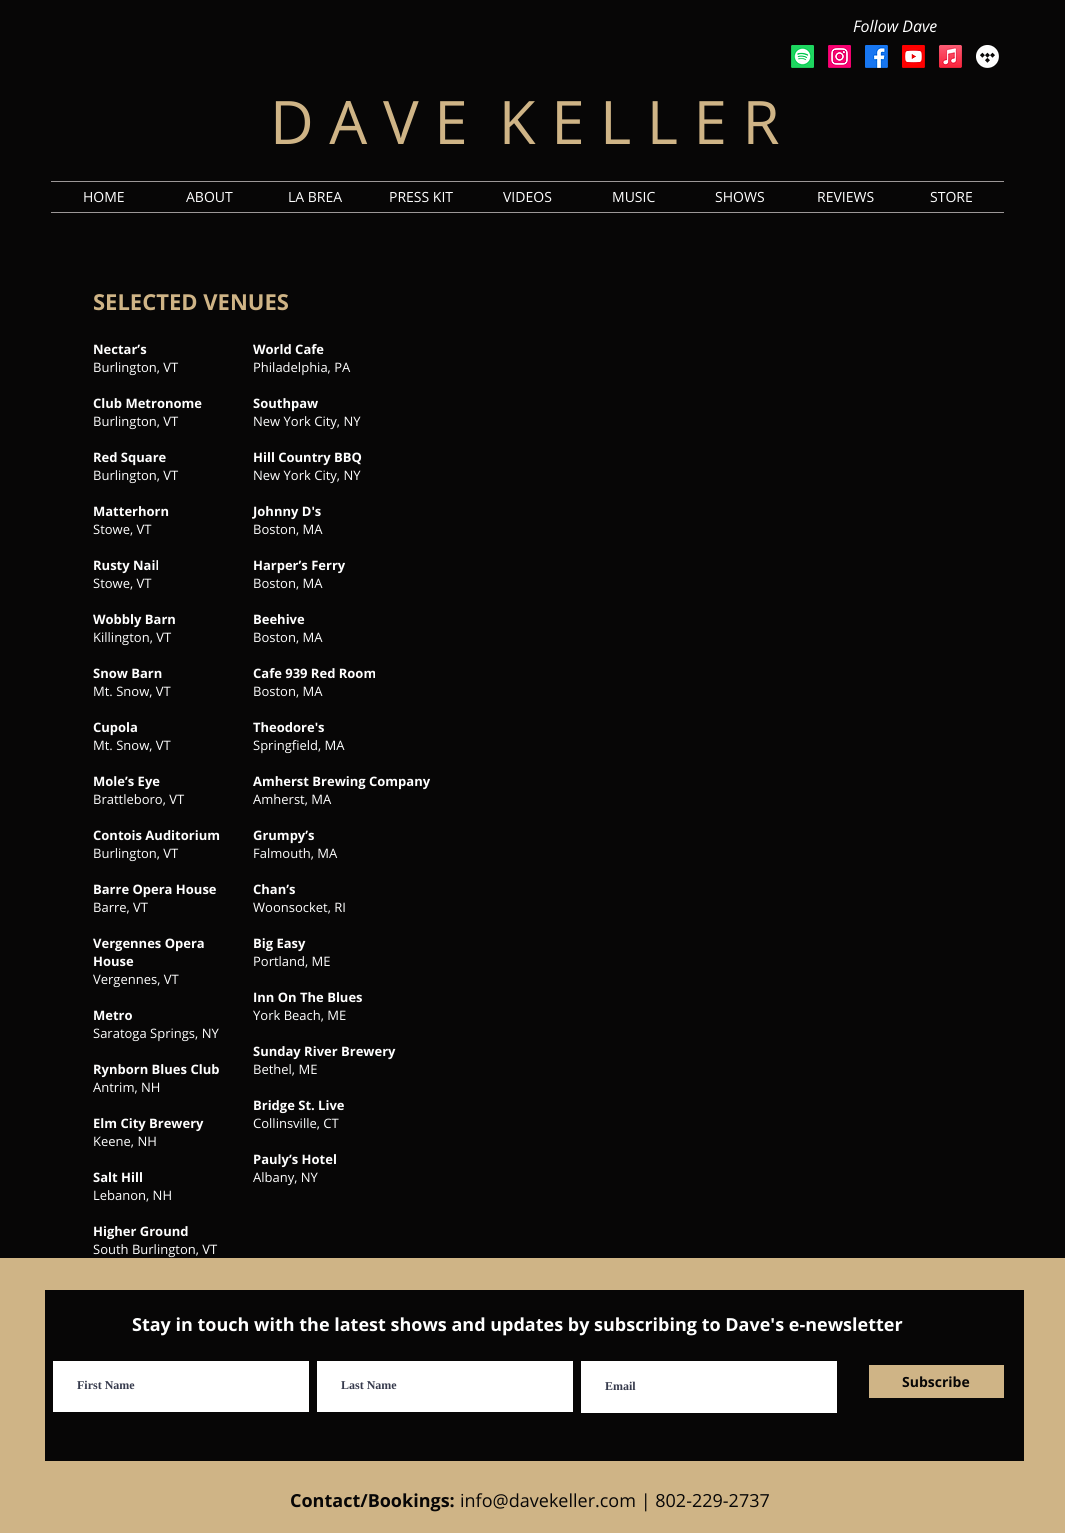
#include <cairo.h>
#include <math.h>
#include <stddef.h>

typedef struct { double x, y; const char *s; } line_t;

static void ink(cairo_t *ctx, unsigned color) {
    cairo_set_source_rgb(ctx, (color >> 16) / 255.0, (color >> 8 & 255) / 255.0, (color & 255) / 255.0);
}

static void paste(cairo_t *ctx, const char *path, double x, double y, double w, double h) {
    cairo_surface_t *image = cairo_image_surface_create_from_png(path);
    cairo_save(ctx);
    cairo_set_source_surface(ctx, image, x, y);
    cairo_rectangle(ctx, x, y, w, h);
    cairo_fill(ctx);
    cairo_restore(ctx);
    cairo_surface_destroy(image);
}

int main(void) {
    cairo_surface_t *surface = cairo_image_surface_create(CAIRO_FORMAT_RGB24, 1065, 1533);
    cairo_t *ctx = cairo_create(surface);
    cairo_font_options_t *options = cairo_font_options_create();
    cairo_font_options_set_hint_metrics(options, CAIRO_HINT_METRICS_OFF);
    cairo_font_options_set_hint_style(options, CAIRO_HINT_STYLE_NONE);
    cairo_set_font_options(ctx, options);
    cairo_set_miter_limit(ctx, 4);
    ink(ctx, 0x070606);
    cairo_paint(ctx);
    cairo_select_font_face(ctx, "Open Sans", CAIRO_FONT_SLANT_ITALIC, CAIRO_FONT_WEIGHT_NORMAL);
    cairo_set_font_size(ctx, 16);
    ink(ctx, 0xFFFFFF);
    cairo_move_to(ctx, 853, 32);
    cairo_show_text(ctx, "Follow Dave");
    paste(ctx, "media/1.png", 791, 45, 23, 23);
    paste(ctx, "media/2.png", 828, 45, 23, 23);
    paste(ctx, "media/3.png", 865, 45, 23, 23);
    paste(ctx, "media/4.png", 902, 45, 23, 23);
    paste(ctx, "media/5.png", 939, 45, 23, 23);
    paste(ctx, "media/6.png", 976, 45, 23, 23);
    cairo_select_font_face(ctx, "Open Sans", CAIRO_FONT_SLANT_NORMAL, CAIRO_FONT_WEIGHT_NORMAL);
    cairo_set_font_size(ctx, 60);
    ink(ctx, 0xCFB486);
    cairo_move_to(ctx, 270, 144);
    cairo_show_text(ctx, "D A V E  K E L L E R");
    ink(ctx, 0x9C9797);
    cairo_rectangle(ctx, 51, 181, 953, 1);
    cairo_fill(ctx);
    cairo_rectangle(ctx, 51, 212, 953, 1);
    cairo_fill(ctx);
    cairo_set_font_size(ctx, 14);
    ink(ctx, 0xFFFFFF);
    {
        static const line_t items[] = {
            {83, 202, "HOME"},
            {186, 202, "ABOUT"},
            {288, 202, "LA BREA"},
            {389, 202, "PRESS KIT"},
            {503, 202, "VIDEOS"},
            {612, 202, "MUSIC"},
            {715, 202, "SHOWS"},
            {817, 202, "REVIEWS"},
            {930, 202, "STORE"},
        };
        for (size_t i = 0; i < sizeof items / sizeof *items; i++) {
            cairo_move_to(ctx, items[i].x, items[i].y);
            cairo_show_text(ctx, items[i].s);
        }
    }
    cairo_select_font_face(ctx, "Open Sans", CAIRO_FONT_SLANT_NORMAL, CAIRO_FONT_WEIGHT_BOLD);
    cairo_set_font_size(ctx, 22);
    ink(ctx, 0xCFB486);
    cairo_move_to(ctx, 93, 310);
    cairo_show_text(ctx, "SELECTED VENUES");
    cairo_set_font_size(ctx, 13);
    ink(ctx, 0xFFFFFF);
    cairo_move_to(ctx, 93, 354);
    cairo_show_text(ctx, "Nectar’s");
    cairo_select_font_face(ctx, "Open Sans", CAIRO_FONT_SLANT_NORMAL, CAIRO_FONT_WEIGHT_NORMAL);
    cairo_move_to(ctx, 93, 372);
    cairo_show_text(ctx, "Burlington, VT");
    cairo_select_font_face(ctx, "Open Sans", CAIRO_FONT_SLANT_NORMAL, CAIRO_FONT_WEIGHT_BOLD);
    cairo_move_to(ctx, 93, 408);
    cairo_show_text(ctx, "Club Metronome");
    cairo_select_font_face(ctx, "Open Sans", CAIRO_FONT_SLANT_NORMAL, CAIRO_FONT_WEIGHT_NORMAL);
    cairo_move_to(ctx, 93, 426);
    cairo_show_text(ctx, "Burlington, VT");
    cairo_select_font_face(ctx, "Open Sans", CAIRO_FONT_SLANT_NORMAL, CAIRO_FONT_WEIGHT_BOLD);
    cairo_move_to(ctx, 93, 462);
    cairo_show_text(ctx, "Red Square");
    cairo_select_font_face(ctx, "Open Sans", CAIRO_FONT_SLANT_NORMAL, CAIRO_FONT_WEIGHT_NORMAL);
    cairo_move_to(ctx, 93, 480);
    cairo_show_text(ctx, "Burlington, VT");
    cairo_select_font_face(ctx, "Open Sans", CAIRO_FONT_SLANT_NORMAL, CAIRO_FONT_WEIGHT_BOLD);
    cairo_move_to(ctx, 93, 516);
    cairo_show_text(ctx, "Matterhorn");
    cairo_select_font_face(ctx, "Open Sans", CAIRO_FONT_SLANT_NORMAL, CAIRO_FONT_WEIGHT_NORMAL);
    cairo_move_to(ctx, 93, 534);
    cairo_show_text(ctx, "Stowe, VT");
    cairo_select_font_face(ctx, "Open Sans", CAIRO_FONT_SLANT_NORMAL, CAIRO_FONT_WEIGHT_BOLD);
    cairo_move_to(ctx, 93, 570);
    cairo_show_text(ctx, "Rusty Nail");
    cairo_select_font_face(ctx, "Open Sans", CAIRO_FONT_SLANT_NORMAL, CAIRO_FONT_WEIGHT_NORMAL);
    cairo_move_to(ctx, 93, 588);
    cairo_show_text(ctx, "Stowe, VT");
    cairo_select_font_face(ctx, "Open Sans", CAIRO_FONT_SLANT_NORMAL, CAIRO_FONT_WEIGHT_BOLD);
    cairo_move_to(ctx, 93, 624);
    cairo_show_text(ctx, "Wobbly Barn");
    cairo_select_font_face(ctx, "Open Sans", CAIRO_FONT_SLANT_NORMAL, CAIRO_FONT_WEIGHT_NORMAL);
    cairo_move_to(ctx, 93, 642);
    cairo_show_text(ctx, "Killington, VT");
    cairo_select_font_face(ctx, "Open Sans", CAIRO_FONT_SLANT_NORMAL, CAIRO_FONT_WEIGHT_BOLD);
    cairo_move_to(ctx, 93, 678);
    cairo_show_text(ctx, "Snow Barn");
    cairo_select_font_face(ctx, "Open Sans", CAIRO_FONT_SLANT_NORMAL, CAIRO_FONT_WEIGHT_NORMAL);
    cairo_move_to(ctx, 93, 696);
    cairo_show_text(ctx, "Mt. Snow, VT");
    cairo_select_font_face(ctx, "Open Sans", CAIRO_FONT_SLANT_NORMAL, CAIRO_FONT_WEIGHT_BOLD);
    cairo_move_to(ctx, 93, 732);
    cairo_show_text(ctx, "Cupola");
    cairo_select_font_face(ctx, "Open Sans", CAIRO_FONT_SLANT_NORMAL, CAIRO_FONT_WEIGHT_NORMAL);
    cairo_move_to(ctx, 93, 750);
    cairo_show_text(ctx, "Mt. Snow, VT");
    cairo_select_font_face(ctx, "Open Sans", CAIRO_FONT_SLANT_NORMAL, CAIRO_FONT_WEIGHT_BOLD);
    cairo_move_to(ctx, 93, 786);
    cairo_show_text(ctx, "Mole’s Eye");
    cairo_select_font_face(ctx, "Open Sans", CAIRO_FONT_SLANT_NORMAL, CAIRO_FONT_WEIGHT_NORMAL);
    cairo_move_to(ctx, 93, 804);
    cairo_show_text(ctx, "Brattleboro, VT");
    cairo_select_font_face(ctx, "Open Sans", CAIRO_FONT_SLANT_NORMAL, CAIRO_FONT_WEIGHT_BOLD);
    cairo_move_to(ctx, 93, 840);
    cairo_show_text(ctx, "Contois Auditorium");
    cairo_select_font_face(ctx, "Open Sans", CAIRO_FONT_SLANT_NORMAL, CAIRO_FONT_WEIGHT_NORMAL);
    cairo_move_to(ctx, 93, 858);
    cairo_show_text(ctx, "Burlington, VT");
    cairo_select_font_face(ctx, "Open Sans", CAIRO_FONT_SLANT_NORMAL, CAIRO_FONT_WEIGHT_BOLD);
    cairo_move_to(ctx, 93, 894);
    cairo_show_text(ctx, "Barre Opera House");
    cairo_select_font_face(ctx, "Open Sans", CAIRO_FONT_SLANT_NORMAL, CAIRO_FONT_WEIGHT_NORMAL);
    cairo_move_to(ctx, 93, 912);
    cairo_show_text(ctx, "Barre, VT");
    cairo_select_font_face(ctx, "Open Sans", CAIRO_FONT_SLANT_NORMAL, CAIRO_FONT_WEIGHT_BOLD);
    cairo_move_to(ctx, 93, 948);
    cairo_show_text(ctx, "Vergennes Opera");
    cairo_move_to(ctx, 93, 966);
    cairo_show_text(ctx, "House");
    cairo_select_font_face(ctx, "Open Sans", CAIRO_FONT_SLANT_NORMAL, CAIRO_FONT_WEIGHT_NORMAL);
    cairo_move_to(ctx, 93, 984);
    cairo_show_text(ctx, "Vergennes, VT");
    cairo_select_font_face(ctx, "Open Sans", CAIRO_FONT_SLANT_NORMAL, CAIRO_FONT_WEIGHT_BOLD);
    cairo_move_to(ctx, 93, 1020);
    cairo_show_text(ctx, "Metro");
    cairo_select_font_face(ctx, "Open Sans", CAIRO_FONT_SLANT_NORMAL, CAIRO_FONT_WEIGHT_NORMAL);
    cairo_move_to(ctx, 93, 1038);
    cairo_show_text(ctx, "Saratoga Springs, NY");
    cairo_select_font_face(ctx, "Open Sans", CAIRO_FONT_SLANT_NORMAL, CAIRO_FONT_WEIGHT_BOLD);
    cairo_move_to(ctx, 93, 1074);
    cairo_show_text(ctx, "Rynborn Blues Club");
    cairo_select_font_face(ctx, "Open Sans", CAIRO_FONT_SLANT_NORMAL, CAIRO_FONT_WEIGHT_NORMAL);
    cairo_move_to(ctx, 93, 1092);
    cairo_show_text(ctx, "Antrim, NH");
    cairo_select_font_face(ctx, "Open Sans", CAIRO_FONT_SLANT_NORMAL, CAIRO_FONT_WEIGHT_BOLD);
    cairo_move_to(ctx, 93, 1128);
    cairo_show_text(ctx, "Elm City Brewery");
    cairo_select_font_face(ctx, "Open Sans", CAIRO_FONT_SLANT_NORMAL, CAIRO_FONT_WEIGHT_NORMAL);
    cairo_move_to(ctx, 93, 1146);
    cairo_show_text(ctx, "Keene, NH");
    cairo_select_font_face(ctx, "Open Sans", CAIRO_FONT_SLANT_NORMAL, CAIRO_FONT_WEIGHT_BOLD);
    cairo_move_to(ctx, 93, 1182);
    cairo_show_text(ctx, "Salt Hill");
    cairo_select_font_face(ctx, "Open Sans", CAIRO_FONT_SLANT_NORMAL, CAIRO_FONT_WEIGHT_NORMAL);
    cairo_move_to(ctx, 93, 1200);
    cairo_show_text(ctx, "Lebanon, NH");
    cairo_select_font_face(ctx, "Open Sans", CAIRO_FONT_SLANT_NORMAL, CAIRO_FONT_WEIGHT_BOLD);
    cairo_move_to(ctx, 93, 1236);
    cairo_show_text(ctx, "Higher Ground");
    cairo_select_font_face(ctx, "Open Sans", CAIRO_FONT_SLANT_NORMAL, CAIRO_FONT_WEIGHT_NORMAL);
    cairo_move_to(ctx, 93, 1254);
    cairo_show_text(ctx, "South Burlington, VT");
    cairo_select_font_face(ctx, "Open Sans", CAIRO_FONT_SLANT_NORMAL, CAIRO_FONT_WEIGHT_BOLD);
    cairo_move_to(ctx, 253, 354);
    cairo_show_text(ctx, "World Cafe");
    cairo_select_font_face(ctx, "Open Sans", CAIRO_FONT_SLANT_NORMAL, CAIRO_FONT_WEIGHT_NORMAL);
    cairo_move_to(ctx, 253, 372);
    cairo_show_text(ctx, "Philadelphia, PA");
    cairo_select_font_face(ctx, "Open Sans", CAIRO_FONT_SLANT_NORMAL, CAIRO_FONT_WEIGHT_BOLD);
    cairo_move_to(ctx, 253, 408);
    cairo_show_text(ctx, "Southpaw");
    cairo_select_font_face(ctx, "Open Sans", CAIRO_FONT_SLANT_NORMAL, CAIRO_FONT_WEIGHT_NORMAL);
    cairo_move_to(ctx, 253, 426);
    cairo_show_text(ctx, "New York City, NY");
    cairo_select_font_face(ctx, "Open Sans", CAIRO_FONT_SLANT_NORMAL, CAIRO_FONT_WEIGHT_BOLD);
    cairo_move_to(ctx, 253, 462);
    cairo_show_text(ctx, "Hill Country BBQ");
    cairo_select_font_face(ctx, "Open Sans", CAIRO_FONT_SLANT_NORMAL, CAIRO_FONT_WEIGHT_NORMAL);
    cairo_move_to(ctx, 253, 480);
    cairo_show_text(ctx, "New York City, NY");
    cairo_select_font_face(ctx, "Open Sans", CAIRO_FONT_SLANT_NORMAL, CAIRO_FONT_WEIGHT_BOLD);
    cairo_move_to(ctx, 253, 516);
    cairo_show_text(ctx, "Johnny D's");
    cairo_select_font_face(ctx, "Open Sans", CAIRO_FONT_SLANT_NORMAL, CAIRO_FONT_WEIGHT_NORMAL);
    cairo_move_to(ctx, 253, 534);
    cairo_show_text(ctx, "Boston, MA");
    cairo_select_font_face(ctx, "Open Sans", CAIRO_FONT_SLANT_NORMAL, CAIRO_FONT_WEIGHT_BOLD);
    cairo_move_to(ctx, 253, 570);
    cairo_show_text(ctx, "Harper’s Ferry");
    cairo_select_font_face(ctx, "Open Sans", CAIRO_FONT_SLANT_NORMAL, CAIRO_FONT_WEIGHT_NORMAL);
    cairo_move_to(ctx, 253, 588);
    cairo_show_text(ctx, "Boston, MA");
    cairo_select_font_face(ctx, "Open Sans", CAIRO_FONT_SLANT_NORMAL, CAIRO_FONT_WEIGHT_BOLD);
    cairo_move_to(ctx, 253, 624);
    cairo_show_text(ctx, "Beehive");
    cairo_select_font_face(ctx, "Open Sans", CAIRO_FONT_SLANT_NORMAL, CAIRO_FONT_WEIGHT_NORMAL);
    cairo_move_to(ctx, 253, 642);
    cairo_show_text(ctx, "Boston, MA");
    cairo_select_font_face(ctx, "Open Sans", CAIRO_FONT_SLANT_NORMAL, CAIRO_FONT_WEIGHT_BOLD);
    cairo_move_to(ctx, 253, 678);
    cairo_show_text(ctx, "Cafe 939 Red Room");
    cairo_select_font_face(ctx, "Open Sans", CAIRO_FONT_SLANT_NORMAL, CAIRO_FONT_WEIGHT_NORMAL);
    cairo_move_to(ctx, 253, 696);
    cairo_show_text(ctx, "Boston, MA");
    cairo_select_font_face(ctx, "Open Sans", CAIRO_FONT_SLANT_NORMAL, CAIRO_FONT_WEIGHT_BOLD);
    cairo_move_to(ctx, 253, 732);
    cairo_show_text(ctx, "Theodore's");
    cairo_select_font_face(ctx, "Open Sans", CAIRO_FONT_SLANT_NORMAL, CAIRO_FONT_WEIGHT_NORMAL);
    cairo_move_to(ctx, 253, 750);
    cairo_show_text(ctx, "Springfield, MA");
    cairo_select_font_face(ctx, "Open Sans", CAIRO_FONT_SLANT_NORMAL, CAIRO_FONT_WEIGHT_BOLD);
    cairo_move_to(ctx, 253, 786);
    cairo_show_text(ctx, "Amherst Brewing Company");
    cairo_select_font_face(ctx, "Open Sans", CAIRO_FONT_SLANT_NORMAL, CAIRO_FONT_WEIGHT_NORMAL);
    cairo_move_to(ctx, 253, 804);
    cairo_show_text(ctx, "Amherst, MA");
    cairo_select_font_face(ctx, "Open Sans", CAIRO_FONT_SLANT_NORMAL, CAIRO_FONT_WEIGHT_BOLD);
    cairo_move_to(ctx, 253, 840);
    cairo_show_text(ctx, "Grumpy’s");
    cairo_select_font_face(ctx, "Open Sans", CAIRO_FONT_SLANT_NORMAL, CAIRO_FONT_WEIGHT_NORMAL);
    cairo_move_to(ctx, 253, 858);
    cairo_show_text(ctx, "Falmouth, MA");
    cairo_select_font_face(ctx, "Open Sans", CAIRO_FONT_SLANT_NORMAL, CAIRO_FONT_WEIGHT_BOLD);
    cairo_move_to(ctx, 253, 894);
    cairo_show_text(ctx, "Chan’s");
    cairo_select_font_face(ctx, "Open Sans", CAIRO_FONT_SLANT_NORMAL, CAIRO_FONT_WEIGHT_NORMAL);
    cairo_move_to(ctx, 253, 912);
    cairo_show_text(ctx, "Woonsocket, RI");
    cairo_select_font_face(ctx, "Open Sans", CAIRO_FONT_SLANT_NORMAL, CAIRO_FONT_WEIGHT_BOLD);
    cairo_move_to(ctx, 253, 948);
    cairo_show_text(ctx, "Big Easy");
    cairo_select_font_face(ctx, "Open Sans", CAIRO_FONT_SLANT_NORMAL, CAIRO_FONT_WEIGHT_NORMAL);
    cairo_move_to(ctx, 253, 966);
    cairo_show_text(ctx, "Portland, ME");
    cairo_select_font_face(ctx, "Open Sans", CAIRO_FONT_SLANT_NORMAL, CAIRO_FONT_WEIGHT_BOLD);
    cairo_move_to(ctx, 253, 1002);
    cairo_show_text(ctx, "Inn On The Blues");
    cairo_select_font_face(ctx, "Open Sans", CAIRO_FONT_SLANT_NORMAL, CAIRO_FONT_WEIGHT_NORMAL);
    cairo_move_to(ctx, 253, 1020);
    cairo_show_text(ctx, "York Beach, ME");
    cairo_select_font_face(ctx, "Open Sans", CAIRO_FONT_SLANT_NORMAL, CAIRO_FONT_WEIGHT_BOLD);
    cairo_move_to(ctx, 253, 1056);
    cairo_show_text(ctx, "Sunday River Brewery");
    cairo_select_font_face(ctx, "Open Sans", CAIRO_FONT_SLANT_NORMAL, CAIRO_FONT_WEIGHT_NORMAL);
    cairo_move_to(ctx, 253, 1074);
    cairo_show_text(ctx, "Bethel, ME");
    cairo_select_font_face(ctx, "Open Sans", CAIRO_FONT_SLANT_NORMAL, CAIRO_FONT_WEIGHT_BOLD);
    cairo_move_to(ctx, 253, 1110);
    cairo_show_text(ctx, "Bridge St. Live");
    cairo_select_font_face(ctx, "Open Sans", CAIRO_FONT_SLANT_NORMAL, CAIRO_FONT_WEIGHT_NORMAL);
    cairo_move_to(ctx, 253, 1128);
    cairo_show_text(ctx, "Collinsville, CT");
    cairo_select_font_face(ctx, "Open Sans", CAIRO_FONT_SLANT_NORMAL, CAIRO_FONT_WEIGHT_BOLD);
    cairo_move_to(ctx, 253, 1164);
    cairo_show_text(ctx, "Pauly’s Hotel");
    cairo_select_font_face(ctx, "Open Sans", CAIRO_FONT_SLANT_NORMAL, CAIRO_FONT_WEIGHT_NORMAL);
    cairo_move_to(ctx, 253, 1182);
    cairo_show_text(ctx, "Albany, NY");
    ink(ctx, 0xCFB486);
    cairo_rectangle(ctx, 0, 1258, 1065, 275);
    cairo_fill(ctx);
    ink(ctx, 0x070606);
    cairo_rectangle(ctx, 45, 1290, 979, 171);
    cairo_fill(ctx);
    cairo_select_font_face(ctx, "Open Sans", CAIRO_FONT_SLANT_NORMAL, CAIRO_FONT_WEIGHT_BOLD);
    cairo_set_font_size(ctx, 18);
    ink(ctx, 0xFFFFFF);
    cairo_move_to(ctx, 132, 1331);
    cairo_show_text(ctx, "Stay in touch with the latest shows and updates by subscribing to Dave's e-newsletter");
    cairo_rectangle(ctx, 53, 1361, 256, 51);
    cairo_fill(ctx);
    cairo_select_font_face(ctx, "Liberation Serif", CAIRO_FONT_SLANT_NORMAL, CAIRO_FONT_WEIGHT_BOLD);
    cairo_set_font_size(ctx, 12);
    ink(ctx, 0x373B4D);
    cairo_move_to(ctx, 77, 1389);
    cairo_show_text(ctx, "First Name");
    ink(ctx, 0xFFFFFF);
    cairo_rectangle(ctx, 317, 1361, 256, 51);
    cairo_fill(ctx);
    ink(ctx, 0x373B4D);
    cairo_move_to(ctx, 341, 1389);
    cairo_show_text(ctx, "Last Name");
    ink(ctx, 0xFFFFFF);
    cairo_rectangle(ctx, 581, 1361, 256, 52);
    cairo_fill(ctx);
    ink(ctx, 0x373B4D);
    cairo_move_to(ctx, 605, 1390);
    cairo_show_text(ctx, "Email");
    ink(ctx, 0xCFB486);
    cairo_rectangle(ctx, 869, 1365, 135, 33);
    cairo_fill(ctx);
    cairo_select_font_face(ctx, "Open Sans", CAIRO_FONT_SLANT_NORMAL, CAIRO_FONT_WEIGHT_BOLD);
    cairo_set_font_size(ctx, 14);
    ink(ctx, 0x070606);
    cairo_move_to(ctx, 902, 1387);
    cairo_show_text(ctx, "Subscribe");
    cairo_set_font_size(ctx, 18);
    cairo_move_to(ctx, 290, 1507);
    cairo_show_text(ctx, "Contact/Bookings:");
    cairo_select_font_face(ctx, "Open Sans", CAIRO_FONT_SLANT_NORMAL, CAIRO_FONT_WEIGHT_NORMAL);
    cairo_move_to(ctx, 460, 1507);
    cairo_show_text(ctx, "info@davekeller.com | 802-229-2737");
    cairo_surface_write_to_png(surface, "image.png");
    cairo_font_options_destroy(options);
    cairo_destroy(ctx);
    cairo_surface_destroy(surface);
    return 0;
}
